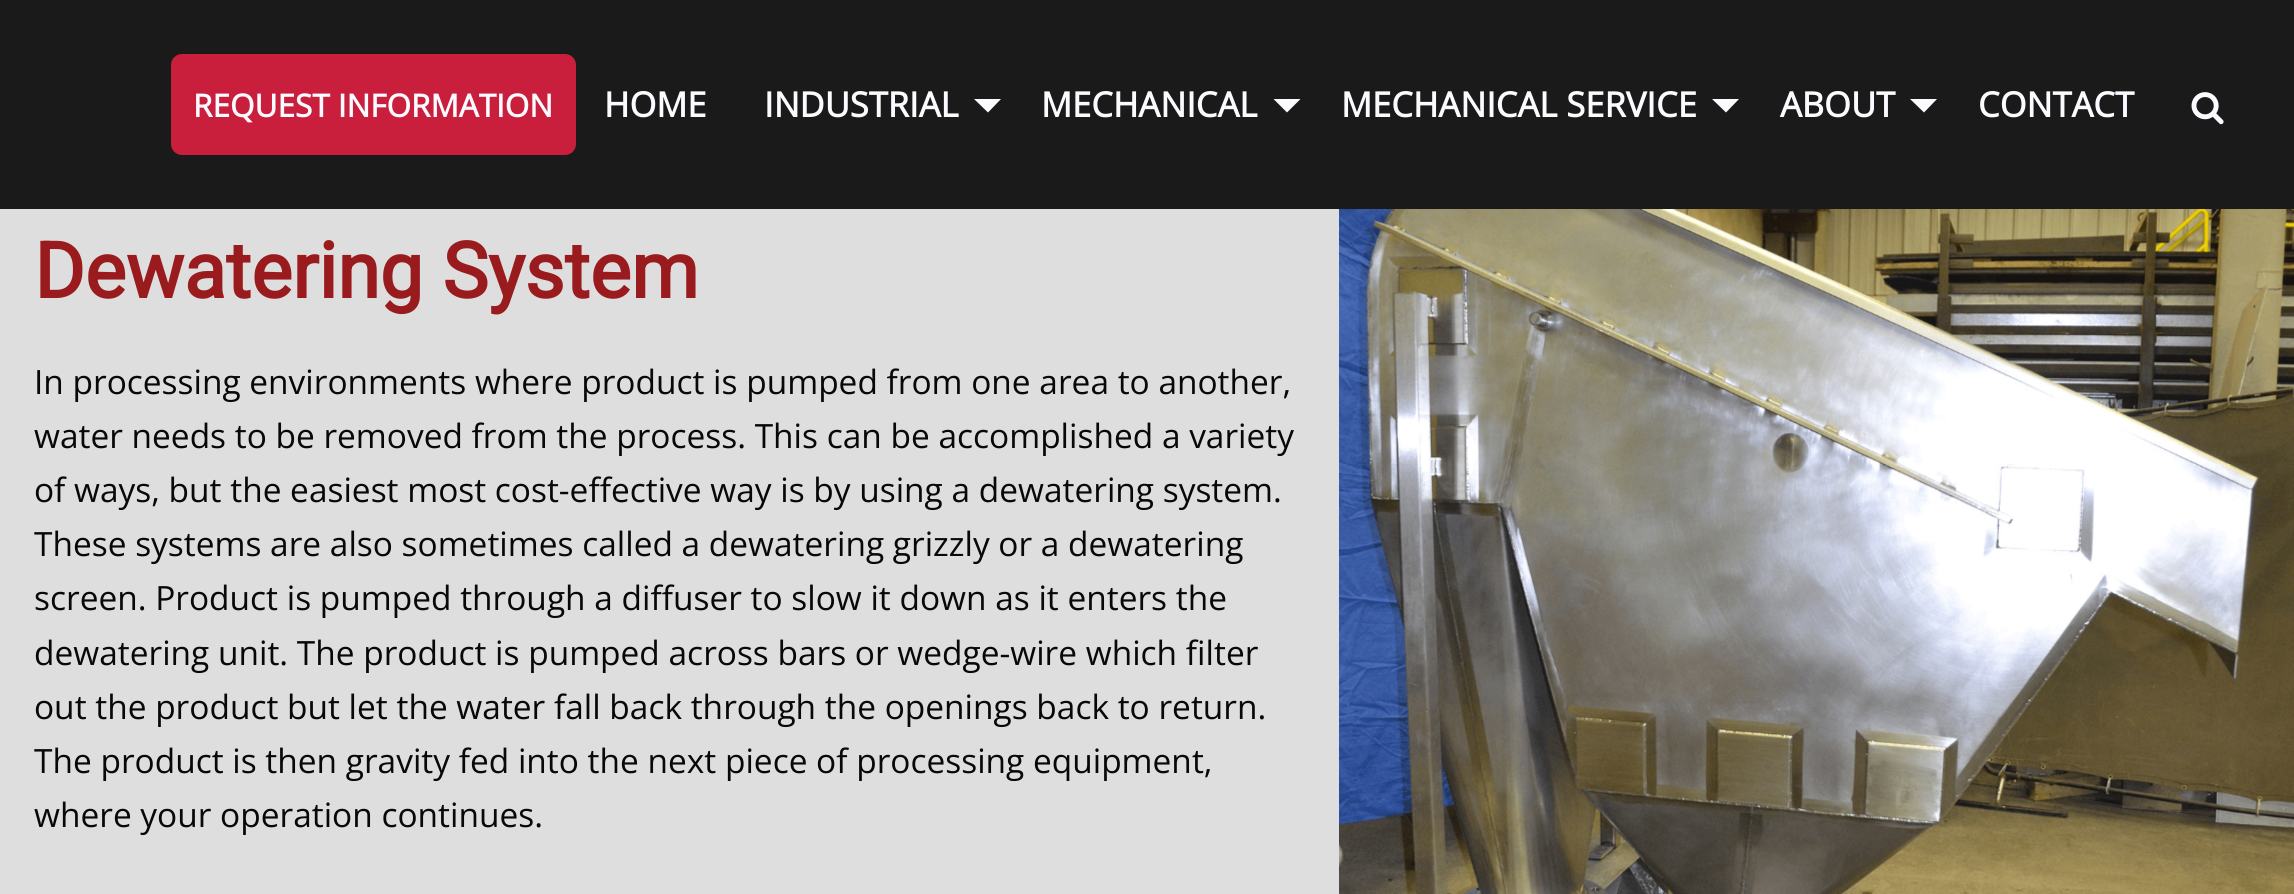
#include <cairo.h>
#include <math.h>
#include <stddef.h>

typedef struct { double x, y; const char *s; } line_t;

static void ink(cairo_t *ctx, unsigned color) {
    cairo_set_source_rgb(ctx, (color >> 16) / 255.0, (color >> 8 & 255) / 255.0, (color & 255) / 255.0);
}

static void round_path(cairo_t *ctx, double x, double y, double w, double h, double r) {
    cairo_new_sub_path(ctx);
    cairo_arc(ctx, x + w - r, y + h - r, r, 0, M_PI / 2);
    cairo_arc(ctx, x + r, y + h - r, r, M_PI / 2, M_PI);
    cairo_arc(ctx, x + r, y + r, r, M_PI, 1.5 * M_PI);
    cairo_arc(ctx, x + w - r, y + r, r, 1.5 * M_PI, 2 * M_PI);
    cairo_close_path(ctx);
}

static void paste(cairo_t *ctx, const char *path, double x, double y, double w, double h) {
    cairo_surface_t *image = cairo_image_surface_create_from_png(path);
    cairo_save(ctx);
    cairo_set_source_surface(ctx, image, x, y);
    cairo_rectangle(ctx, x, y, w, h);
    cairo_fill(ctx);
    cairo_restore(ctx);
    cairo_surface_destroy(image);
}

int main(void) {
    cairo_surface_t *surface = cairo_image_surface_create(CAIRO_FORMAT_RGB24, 2294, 894);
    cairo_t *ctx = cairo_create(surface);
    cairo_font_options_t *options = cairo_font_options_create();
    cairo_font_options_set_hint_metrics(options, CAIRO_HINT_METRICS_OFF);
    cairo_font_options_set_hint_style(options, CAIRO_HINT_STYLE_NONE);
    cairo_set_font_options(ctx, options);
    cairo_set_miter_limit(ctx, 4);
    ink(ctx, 0xDEDEDE);
    cairo_paint(ctx);
    ink(ctx, 0x1A1A1A);
    cairo_rectangle(ctx, 0, 0, 2294, 209);
    cairo_fill(ctx);
    ink(ctx, 0xC91F3C);
    round_path(ctx, 171, 54, 405, 101, 11);
    cairo_fill(ctx);
    cairo_select_font_face(ctx, "Open Sans", CAIRO_FONT_SLANT_NORMAL, CAIRO_FONT_WEIGHT_BOLD);
    cairo_set_font_size(ctx, 31.5);
    ink(ctx, 0xFAFAFF);
    cairo_move_to(ctx, 193, 117);
    cairo_show_text(ctx, "REQUEST INFORMATION");
    cairo_set_font_size(ctx, 34.5);
    cairo_move_to(ctx, 604, 117);
    cairo_show_text(ctx, "HOME");
    cairo_move_to(ctx, 764, 117);
    cairo_show_text(ctx, "INDUSTRIAL");
    cairo_new_path(ctx);
    cairo_move_to(ctx, 974, 99);
    cairo_line_to(ctx, 1001, 99);
    cairo_line_to(ctx, 988, 112.5);
    cairo_close_path(ctx);
    cairo_fill(ctx);
    cairo_move_to(ctx, 1041, 117);
    cairo_show_text(ctx, "MECHANICAL");
    cairo_new_path(ctx);
    cairo_move_to(ctx, 1273.5, 99);
    cairo_line_to(ctx, 1300.5, 99);
    cairo_line_to(ctx, 1287, 112.5);
    cairo_close_path(ctx);
    cairo_fill(ctx);
    cairo_move_to(ctx, 1341, 117);
    cairo_show_text(ctx, "MECHANICAL SERVICE");
    cairo_new_path(ctx);
    cairo_move_to(ctx, 1712, 99);
    cairo_line_to(ctx, 1739, 99);
    cairo_line_to(ctx, 1726, 112.5);
    cairo_close_path(ctx);
    cairo_fill(ctx);
    cairo_move_to(ctx, 1780, 117);
    cairo_show_text(ctx, "ABOUT");
    cairo_new_path(ctx);
    cairo_move_to(ctx, 1910, 99);
    cairo_line_to(ctx, 1937, 99);
    cairo_line_to(ctx, 1924, 112.5);
    cairo_close_path(ctx);
    cairo_fill(ctx);
    cairo_move_to(ctx, 1978, 117);
    cairo_show_text(ctx, "CONTACT");
    paste(ctx, "media/1.png", 2191, 92, 33, 33);
    cairo_select_font_face(ctx, "Roboto", CAIRO_FONT_SLANT_NORMAL, CAIRO_FONT_WEIGHT_BOLD);
    cairo_set_font_size(ctx, 77.25);
    ink(ctx, 0x9A1B1E);
    cairo_move_to(ctx, 34, 298);
    cairo_show_text(ctx, "Dewatering System");
    cairo_select_font_face(ctx, "Open Sans", CAIRO_FONT_SLANT_NORMAL, CAIRO_FONT_WEIGHT_NORMAL);
    cairo_set_font_size(ctx, 33.45);
    ink(ctx, 0x080808);
    {
        static const line_t items[] = {
            {34, 394, "In processing environments where product is pumped from one area to another,"},
            {34, 448, "water needs to be removed from the process. This can be accomplished a variety"},
            {34, 502, "of ways, but the easiest most cost-effective way is by using a dewatering system."},
            {34, 556, "These systems are also sometimes called a dewatering grizzly or a dewatering"},
            {34, 610, "screen. Product is pumped through a diffuser to slow it down as it enters the"},
            {34, 665, "dewatering unit. The product is pumped across bars or wedge-wire which filter"},
            {34, 719, "out the product but let the water fall back through the openings back to return."},
            {34, 773, "The product is then gravity fed into the next piece of processing equipment,"},
            {34, 827, "where your operation continues."},
        };
        for (size_t i = 0; i < sizeof items / sizeof *items; i++) {
            cairo_move_to(ctx, items[i].x, items[i].y);
            cairo_show_text(ctx, items[i].s);
        }
    }
    paste(ctx, "media/2.png", 1339, 209, 955, 685);
    cairo_surface_write_to_png(surface, "image.png");
    cairo_font_options_destroy(options);
    cairo_destroy(ctx);
    cairo_surface_destroy(surface);
    return 0;
}
